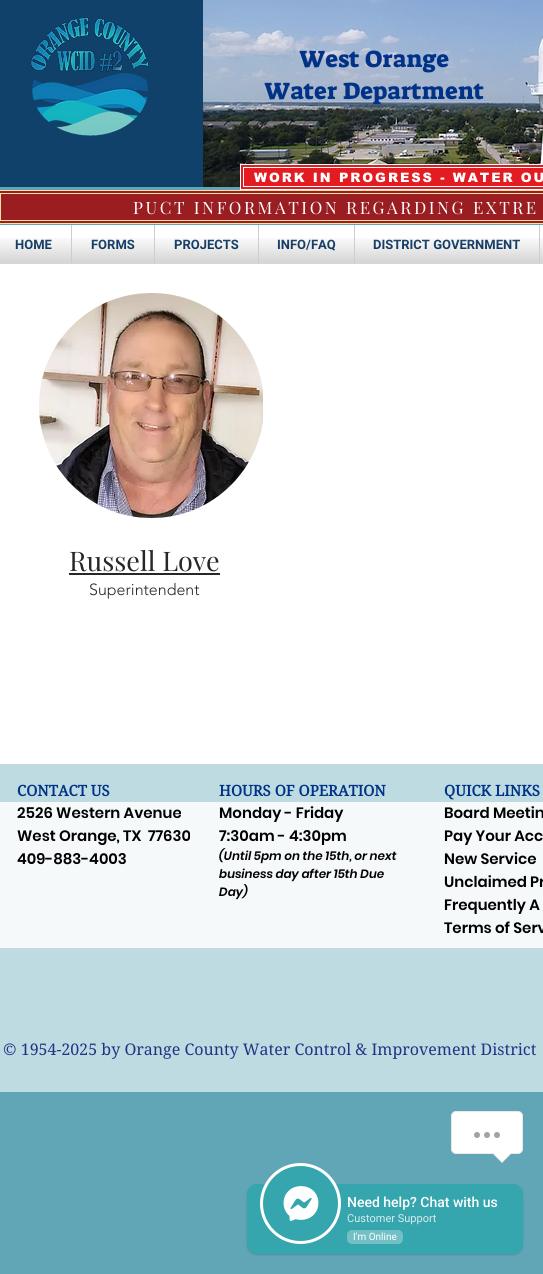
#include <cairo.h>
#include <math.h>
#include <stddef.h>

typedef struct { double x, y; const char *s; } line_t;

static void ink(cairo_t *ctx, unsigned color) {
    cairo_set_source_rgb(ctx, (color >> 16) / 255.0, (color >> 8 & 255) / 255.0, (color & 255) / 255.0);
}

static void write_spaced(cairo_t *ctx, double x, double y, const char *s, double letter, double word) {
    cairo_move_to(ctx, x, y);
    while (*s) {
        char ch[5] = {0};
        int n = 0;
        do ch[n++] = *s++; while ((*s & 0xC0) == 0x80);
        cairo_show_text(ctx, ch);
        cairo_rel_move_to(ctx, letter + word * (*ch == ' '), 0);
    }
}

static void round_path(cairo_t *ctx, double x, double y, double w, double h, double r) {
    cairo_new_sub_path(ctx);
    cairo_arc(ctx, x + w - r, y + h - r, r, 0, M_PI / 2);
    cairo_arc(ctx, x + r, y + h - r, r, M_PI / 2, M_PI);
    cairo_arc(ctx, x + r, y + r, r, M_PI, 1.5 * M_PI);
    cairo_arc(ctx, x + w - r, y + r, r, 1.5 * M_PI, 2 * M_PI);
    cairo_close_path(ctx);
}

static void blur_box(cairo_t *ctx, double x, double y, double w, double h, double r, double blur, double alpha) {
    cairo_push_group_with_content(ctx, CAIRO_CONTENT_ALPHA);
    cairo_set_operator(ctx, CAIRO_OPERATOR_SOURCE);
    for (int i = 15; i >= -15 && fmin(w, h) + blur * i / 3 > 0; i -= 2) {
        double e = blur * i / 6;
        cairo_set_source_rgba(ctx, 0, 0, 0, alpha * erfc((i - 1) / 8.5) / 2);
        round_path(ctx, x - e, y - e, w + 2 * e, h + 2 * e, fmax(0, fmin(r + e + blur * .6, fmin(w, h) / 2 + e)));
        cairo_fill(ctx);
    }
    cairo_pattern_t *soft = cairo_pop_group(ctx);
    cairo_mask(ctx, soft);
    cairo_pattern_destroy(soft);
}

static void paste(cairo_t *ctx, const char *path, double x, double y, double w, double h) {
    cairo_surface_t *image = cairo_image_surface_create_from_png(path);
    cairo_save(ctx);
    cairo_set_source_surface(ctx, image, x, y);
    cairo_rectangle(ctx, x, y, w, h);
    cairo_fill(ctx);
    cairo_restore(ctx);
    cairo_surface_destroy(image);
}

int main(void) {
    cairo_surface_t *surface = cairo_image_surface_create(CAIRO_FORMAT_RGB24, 543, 1274);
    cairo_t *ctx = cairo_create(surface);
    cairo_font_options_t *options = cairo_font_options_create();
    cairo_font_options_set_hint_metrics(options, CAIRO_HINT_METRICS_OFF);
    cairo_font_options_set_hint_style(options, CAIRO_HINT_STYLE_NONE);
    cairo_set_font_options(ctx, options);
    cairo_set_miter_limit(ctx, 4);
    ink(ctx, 0x60A6B6);
    cairo_paint(ctx);
    ink(ctx, 0x0F416B);
    cairo_rectangle(ctx, 0, 0, 203, 187);
    cairo_fill(ctx);
    paste(ctx, "media/1.png", 203, 0, 340, 187);
    paste(ctx, "media/2.png", 30, 17, 119, 119);
    cairo_select_font_face(ctx, "Suez One", CAIRO_FONT_SLANT_NORMAL, CAIRO_FONT_WEIGHT_NORMAL);
    cairo_set_font_size(ctx, 24);
    ink(ctx, 0x003287);
    write_spaced(ctx, 299, 67, "West Orange", 0.25, 0);
    write_spaced(ctx, 264, 99, "Water Department", 0.25, 0);
    ink(ctx, 0xE21C21);
    cairo_rectangle(ctx, 240.5, 164.5, 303, 25);
    cairo_fill_preserve(ctx);
    ink(ctx, 0xFFFFFF);
    cairo_set_line_width(ctx, 1);
    cairo_stroke(ctx);
    cairo_rectangle(ctx, 243.5, 167.5, 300, 19);
    cairo_stroke(ctx);
    cairo_select_font_face(ctx, "arial Black", CAIRO_FONT_SLANT_NORMAL, CAIRO_FONT_WEIGHT_NORMAL);
    cairo_set_font_size(ctx, 13);
    write_spaced(ctx, 254, 182, "WORK IN PROGRESS - WATER OU", 1.95, 0);
    ink(ctx, 0x991D21);
    cairo_rectangle(ctx, -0.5, 190.5, 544, 33);
    cairo_fill_preserve(ctx);
    ink(ctx, 0xF9E2A6);
    cairo_stroke(ctx);
    cairo_rectangle(ctx, 0.5, 193.5, 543, 27);
    cairo_stroke(ctx);
    cairo_select_font_face(ctx, "Playfair Display", CAIRO_FONT_SLANT_NORMAL, CAIRO_FONT_WEIGHT_NORMAL);
    cairo_set_font_size(ctx, 17);
    ink(ctx, 0xFFFFFF);
    write_spaced(ctx, 133, 214, "PUCT INFORMATION REGARDING EXTRE", 2.55, 0);
    ink(ctx, 0xA29E9E);
    blur_box(ctx, 1, 227, 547, 39, 0, 1.5, 0.6);
    ink(ctx, 0xFFFFFF);
    cairo_rectangle(ctx, 0, 225, 71, 39);
    cairo_fill(ctx);
    cairo_select_font_face(ctx, "Roboto", CAIRO_FONT_SLANT_NORMAL, CAIRO_FONT_WEIGHT_BOLD);
    cairo_set_font_size(ctx, 13);
    ink(ctx, 0x002E5D);
    cairo_move_to(ctx, 15, 249);
    cairo_show_text(ctx, "HOME");
    paste(ctx, "media/3.png", 16, 239, 36, 10);
    paste(ctx, "media/4.png", 0, 238, 71, 26);
    ink(ctx, 0xFFFFFF);
    cairo_rectangle(ctx, 72, 225, 82, 39);
    cairo_fill(ctx);
    ink(ctx, 0xCDCDCD);
    cairo_rectangle(ctx, 71, 225, 1, 39);
    cairo_fill(ctx);
    ink(ctx, 0x002E5D);
    cairo_move_to(ctx, 91, 249);
    cairo_show_text(ctx, "FORMS");
    paste(ctx, "media/5.png", 92, 239, 43, 10);
    paste(ctx, "media/6.png", 72, 238, 82, 26);
    ink(ctx, 0xFFFFFF);
    cairo_rectangle(ctx, 155, 225, 103, 39);
    cairo_fill(ctx);
    ink(ctx, 0xCDCDCD);
    cairo_rectangle(ctx, 154, 225, 1, 39);
    cairo_fill(ctx);
    ink(ctx, 0x002E5D);
    cairo_move_to(ctx, 174, 249);
    cairo_show_text(ctx, "PROJECTS");
    paste(ctx, "media/7.png", 175, 239, 64, 10);
    paste(ctx, "media/8.png", 155, 238, 103, 26);
    ink(ctx, 0xFFFFFF);
    cairo_rectangle(ctx, 259, 225, 95, 39);
    cairo_fill(ctx);
    ink(ctx, 0xCDCDCD);
    cairo_rectangle(ctx, 258, 225, 1, 39);
    cairo_fill(ctx);
    ink(ctx, 0x002E5D);
    cairo_move_to(ctx, 277, 249);
    cairo_show_text(ctx, "INFO/FAQ");
    paste(ctx, "media/9.png", 278, 239, 58, 11);
    paste(ctx, "media/10.png", 259, 238, 95, 26);
    ink(ctx, 0xFFFFFF);
    cairo_rectangle(ctx, 355, 225, 184, 39);
    cairo_fill(ctx);
    ink(ctx, 0xCDCDCD);
    cairo_rectangle(ctx, 354, 225, 1, 39);
    cairo_fill(ctx);
    ink(ctx, 0x002E5D);
    cairo_move_to(ctx, 373, 249);
    cairo_show_text(ctx, "DISTRICT GOVERNMENT");
    paste(ctx, "media/11.png", 374, 239, 147, 10);
    paste(ctx, "media/12.png", 355, 238, 184, 26);
    ink(ctx, 0xFFFFFF);
    cairo_rectangle(ctx, 540, 225, 3, 39);
    cairo_fill(ctx);
    ink(ctx, 0xCDCDCD);
    cairo_rectangle(ctx, 539, 225, 1, 39);
    cairo_fill(ctx);
    paste(ctx, "media/13.png", 540, 238, 3, 26);
    ink(ctx, 0xFFFFFF);
    cairo_rectangle(ctx, 0, 264, 543, 500);
    cairo_fill(ctx);
    paste(ctx, "media/14.png", 39, 293, 224, 225);
    cairo_select_font_face(ctx, "Playfair Display", CAIRO_FONT_SLANT_NORMAL, CAIRO_FONT_WEIGHT_NORMAL);
    cairo_set_font_size(ctx, 27);
    ink(ctx, 0x282626);
    cairo_move_to(ctx, 69, 571);
    cairo_show_text(ctx, "Russell Love");
    cairo_rectangle(ctx, 69, 573, 151, 2);
    cairo_fill(ctx);
    cairo_select_font_face(ctx, "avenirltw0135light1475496 Light", CAIRO_FONT_SLANT_NORMAL, CAIRO_FONT_WEIGHT_NORMAL);
    cairo_set_font_size(ctx, 16);
    cairo_move_to(ctx, 89, 595);
    cairo_show_text(ctx, "Superintendent");
    ink(ctx, 0xBEDBE1);
    cairo_rectangle(ctx, 0, 764, 543, 328);
    cairo_fill(ctx);
    cairo_select_font_face(ctx, "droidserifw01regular", CAIRO_FONT_SLANT_NORMAL, CAIRO_FONT_WEIGHT_BOLD);
    cairo_set_font_size(ctx, 15);
    ink(ctx, 0x003287);
    cairo_move_to(ctx, 17, 796);
    cairo_show_text(ctx, "CONTACT US");
    ink(ctx, 0xF5F9FA);
    cairo_rectangle(ctx, 0, 802, 543, 146);
    cairo_fill(ctx);
    cairo_select_font_face(ctx, "Poppins SemiBold", CAIRO_FONT_SLANT_NORMAL, CAIRO_FONT_WEIGHT_NORMAL);
    ink(ctx, 0x000000);
    {
        static const line_t items[] = {
            {17, 818, "2526 Western Avenue"},
            {17, 841, "West Orange, TX  77630"},
            {17, 864, "409-883-4003"},
        };
        for (size_t i = 0; i < sizeof items / sizeof *items; i++) {
            cairo_move_to(ctx, items[i].x, items[i].y);
            cairo_show_text(ctx, items[i].s);
        }
    }
    cairo_select_font_face(ctx, "droidserifw01regular", CAIRO_FONT_SLANT_NORMAL, CAIRO_FONT_WEIGHT_BOLD);
    ink(ctx, 0x003287);
    cairo_move_to(ctx, 219, 796);
    cairo_show_text(ctx, "HOURS OF OPERATION");
    cairo_select_font_face(ctx, "Poppins SemiBold", CAIRO_FONT_SLANT_NORMAL, CAIRO_FONT_WEIGHT_NORMAL);
    ink(ctx, 0x000000);
    cairo_move_to(ctx, 219, 818);
    cairo_show_text(ctx, "Monday - Friday");
    cairo_move_to(ctx, 219, 841);
    cairo_show_text(ctx, "7:30am - 4:30pm");
    cairo_select_font_face(ctx, "Poppins SemiBold", CAIRO_FONT_SLANT_ITALIC, CAIRO_FONT_WEIGHT_NORMAL);
    cairo_set_font_size(ctx, 12);
    {
        static const line_t items[] = {
            {219, 860, "(Until 5pm on the 15th, or next"},
            {219, 878, "business day after 15th Due"},
            {219, 896, "Day)"},
        };
        for (size_t i = 0; i < sizeof items / sizeof *items; i++) {
            cairo_move_to(ctx, items[i].x, items[i].y);
            cairo_show_text(ctx, items[i].s);
        }
    }
    cairo_select_font_face(ctx, "droidserifw01regular", CAIRO_FONT_SLANT_NORMAL, CAIRO_FONT_WEIGHT_BOLD);
    cairo_set_font_size(ctx, 15);
    ink(ctx, 0x003287);
    cairo_move_to(ctx, 444, 796);
    cairo_show_text(ctx, "QUICK LINKS");
    cairo_select_font_face(ctx, "Poppins SemiBold", CAIRO_FONT_SLANT_NORMAL, CAIRO_FONT_WEIGHT_NORMAL);
    ink(ctx, 0x000000);
    {
        static const line_t items[] = {
            {444, 818, "Board Meetin"},
            {444, 841, "Pay Your Acc"},
            {444, 864, "New Service"},
            {444, 887, "Unclaimed Pr"},
            {444, 910, "Frequently A"},
            {444, 933, "Terms of Serv"},
        };
        for (size_t i = 0; i < sizeof items / sizeof *items; i++) {
            cairo_move_to(ctx, items[i].x, items[i].y);
            cairo_show_text(ctx, items[i].s);
        }
    }
    cairo_select_font_face(ctx, "droidserifw01regular", CAIRO_FONT_SLANT_NORMAL, CAIRO_FONT_WEIGHT_NORMAL);
    cairo_set_font_size(ctx, 16);
    ink(ctx, 0x223385);
    cairo_move_to(ctx, 3, 1055);
    cairo_show_text(ctx, "© 1954-2025 by Orange County Water Control & Improvement District");
    ink(ctx, 0xFFFFFF);
    round_path(ctx, 451.5, 1111.5, 71, 42, 4.5);
    cairo_fill_preserve(ctx);
    ink(ctx, 0xE9E9E9);
    cairo_stroke(ctx);
    ink(ctx, 0x9FA4A8);
    cairo_arc(ctx, 477, 1135, 3, 0, 2 * M_PI);
    cairo_fill(ctx);
    cairo_arc(ctx, 487, 1135, 3, 0, 2 * M_PI);
    cairo_fill(ctx);
    cairo_arc(ctx, 497, 1135, 3, 0, 2 * M_PI);
    cairo_fill(ctx);
    ink(ctx, 0xE9E9E9);
    cairo_new_path(ctx);
    cairo_move_to(ctx, 492, 1153);
    cairo_line_to(ctx, 512, 1153);
    cairo_line_to(ctx, 502, 1163);
    cairo_close_path(ctx);
    cairo_fill(ctx);
    ink(ctx, 0xFFFFFF);
    cairo_new_path(ctx);
    cairo_move_to(ctx, 493, 1153);
    cairo_line_to(ctx, 511, 1153);
    cairo_line_to(ctx, 502, 1162);
    cairo_close_path(ctx);
    cairo_fill(ctx);
    ink(ctx, 0x000000);
    blur_box(ctx, 247, 1185, 276, 70, 10, 1, 0.15);
    ink(ctx, 0x35A5AE);
    round_path(ctx, 247, 1184, 276, 70, 10);
    cairo_fill(ctx);
    cairo_arc(ctx, 300.5, 1203.5, 39, 0, 2 * M_PI);
    cairo_fill_preserve(ctx);
    ink(ctx, 0xFFFFFF);
    cairo_set_line_width(ctx, 3);
    cairo_stroke(ctx);
    paste(ctx, "media/15.png", 283, 1186, 36, 35);
    cairo_select_font_face(ctx, "Roboto Medium", CAIRO_FONT_SLANT_NORMAL, CAIRO_FONT_WEIGHT_NORMAL);
    cairo_set_font_size(ctx, 14);
    cairo_move_to(ctx, 347, 1207);
    cairo_show_text(ctx, "Need help? Chat with us");
    cairo_select_font_face(ctx, "Roboto", CAIRO_FONT_SLANT_NORMAL, CAIRO_FONT_WEIGHT_NORMAL);
    cairo_set_font_size(ctx, 11);
    ink(ctx, 0xD7EDEF);
    cairo_move_to(ctx, 347, 1222);
    cairo_show_text(ctx, "Customer Support");
    ink(ctx, 0x72C0C6);
    round_path(ctx, 347, 1230, 56, 14, 5);
    cairo_fill(ctx);
    cairo_set_font_size(ctx, 10);
    ink(ctx, 0xFFFFFF);
    cairo_move_to(ctx, 353, 1240);
    cairo_show_text(ctx, "I'm Online");
    cairo_surface_write_to_png(surface, "image.png");
    cairo_font_options_destroy(options);
    cairo_destroy(ctx);
    cairo_surface_destroy(surface);
    return 0;
}
